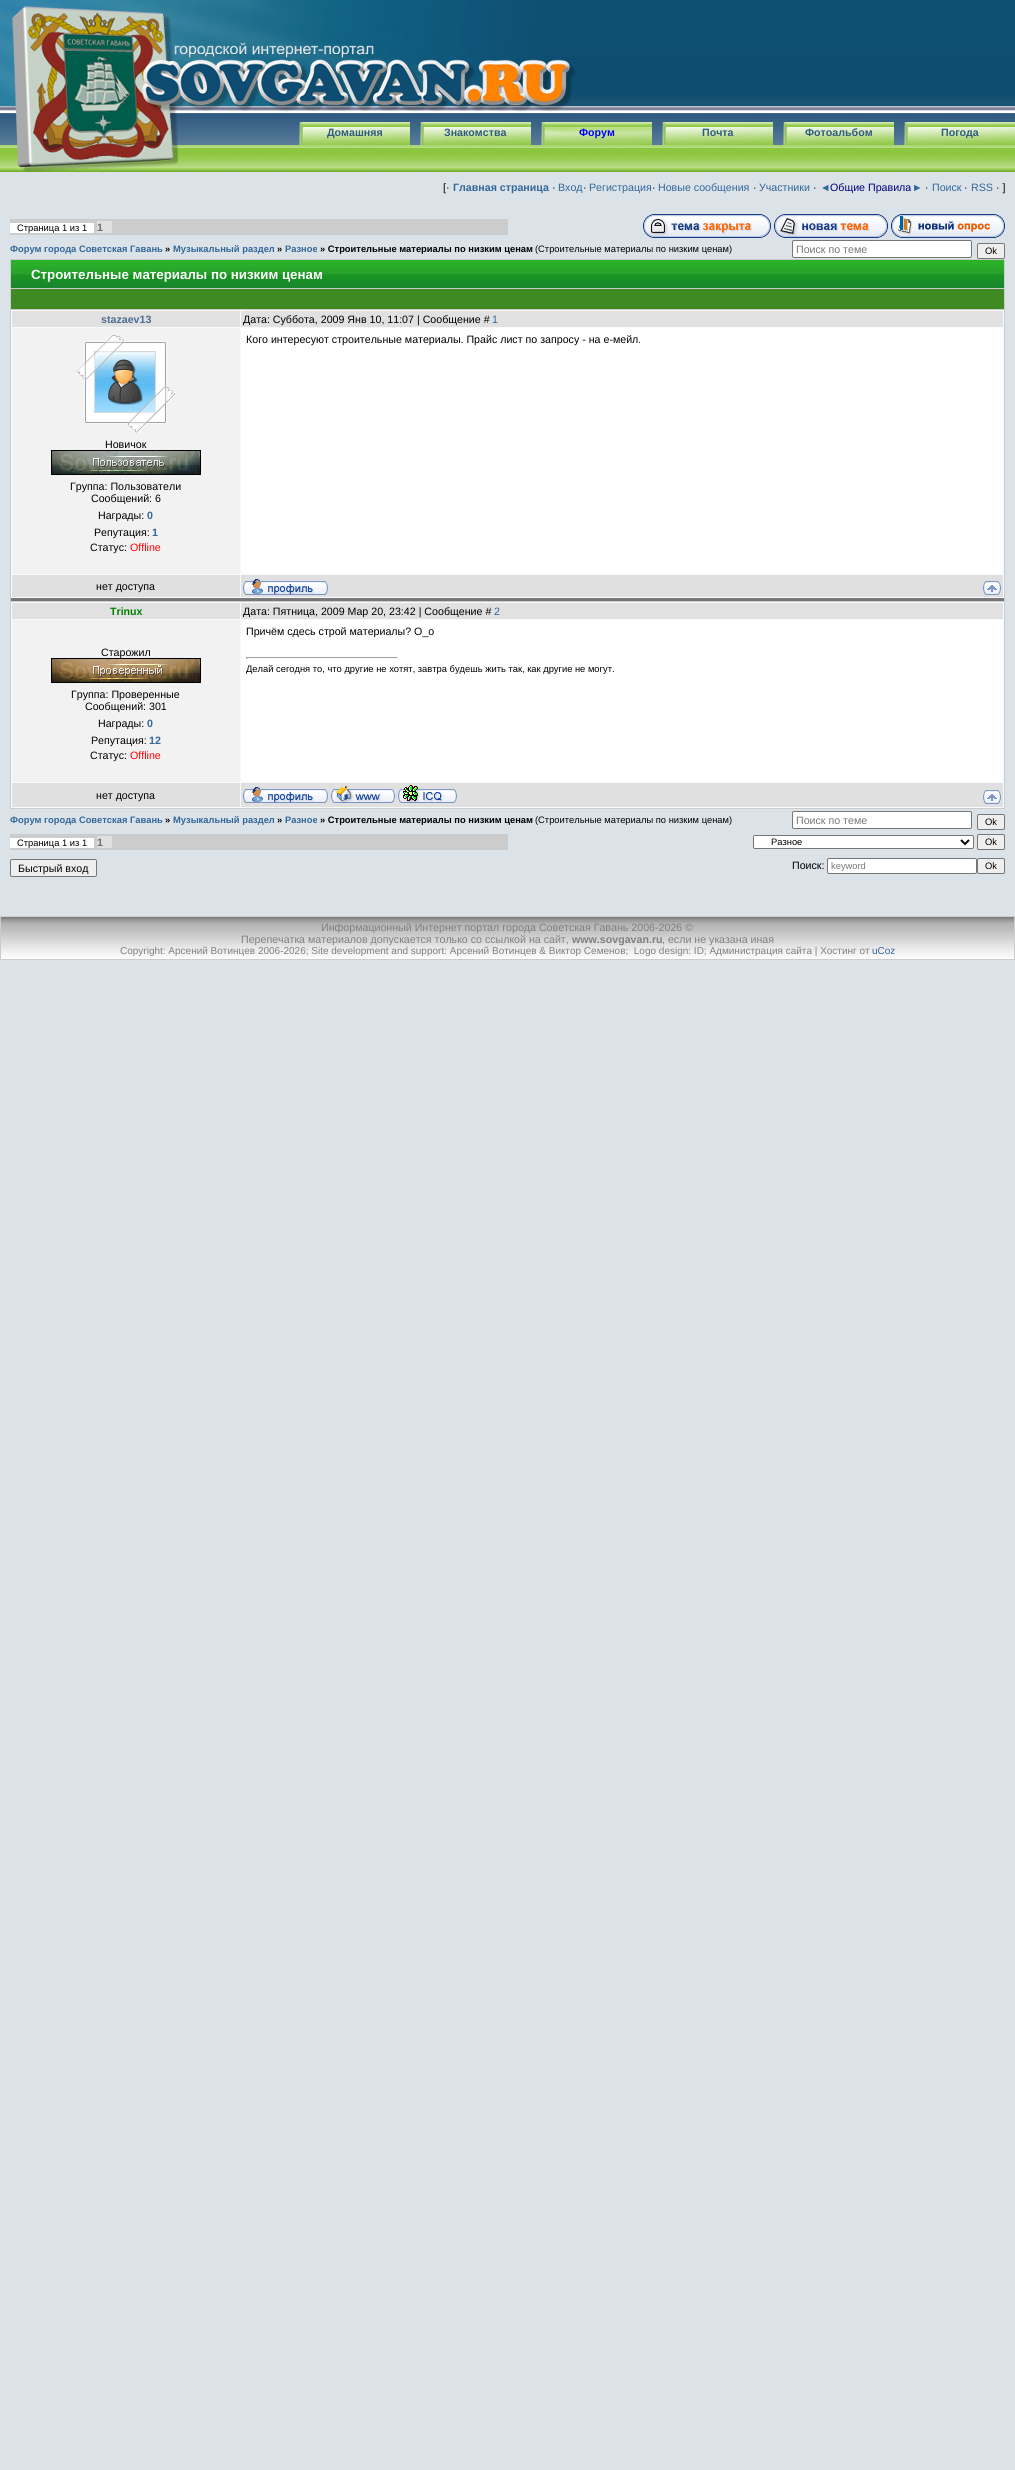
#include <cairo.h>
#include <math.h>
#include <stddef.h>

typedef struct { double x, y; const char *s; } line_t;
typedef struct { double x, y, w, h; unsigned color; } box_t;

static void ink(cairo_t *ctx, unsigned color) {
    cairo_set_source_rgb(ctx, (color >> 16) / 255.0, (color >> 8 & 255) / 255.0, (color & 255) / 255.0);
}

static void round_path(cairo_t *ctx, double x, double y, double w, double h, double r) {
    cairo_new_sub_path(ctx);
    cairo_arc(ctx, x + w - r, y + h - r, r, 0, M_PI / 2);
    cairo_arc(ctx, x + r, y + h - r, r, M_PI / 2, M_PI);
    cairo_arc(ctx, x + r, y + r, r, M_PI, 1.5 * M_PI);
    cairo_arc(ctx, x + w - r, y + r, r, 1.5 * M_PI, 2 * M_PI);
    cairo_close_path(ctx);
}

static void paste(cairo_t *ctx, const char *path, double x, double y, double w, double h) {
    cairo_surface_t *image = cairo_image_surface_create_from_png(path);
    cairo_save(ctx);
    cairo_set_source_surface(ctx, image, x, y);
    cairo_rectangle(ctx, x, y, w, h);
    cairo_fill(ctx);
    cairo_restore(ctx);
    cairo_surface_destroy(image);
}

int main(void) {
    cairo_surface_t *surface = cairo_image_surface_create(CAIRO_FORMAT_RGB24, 1015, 2470);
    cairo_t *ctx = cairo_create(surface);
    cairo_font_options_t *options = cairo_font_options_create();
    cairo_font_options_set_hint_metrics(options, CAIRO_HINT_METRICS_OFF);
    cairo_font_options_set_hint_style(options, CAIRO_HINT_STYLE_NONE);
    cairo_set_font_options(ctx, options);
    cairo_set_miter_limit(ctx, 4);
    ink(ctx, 0xDBE3E9);
    cairo_paint(ctx);
    ink(ctx, 0xFFFFFF);
    cairo_rectangle(ctx, 0, 111, 1015, 2);
    cairo_fill(ctx);
    paste(ctx, "media/1.png", 552, 0, 463, 111);
    paste(ctx, "media/2.png", 0, 0, 552, 111);
    paste(ctx, "media/5.png", 0, 113, 1015, 32);
    paste(ctx, "media/8.png", 0, 145, 1015, 27);
    paste(ctx, "media/3.png", 12, 6, 166, 166);
    paste(ctx, "media/4.png", 178, 42, 398, 70);
    paste(ctx, "media/6.png", 299, 122, 111, 23);
    cairo_select_font_face(ctx, "Liberation Sans", CAIRO_FONT_SLANT_NORMAL, CAIRO_FONT_WEIGHT_BOLD);
    cairo_set_font_size(ctx, 10.65);
    ink(ctx, 0x305B80);
    cairo_move_to(ctx, 327, 136);
    cairo_show_text(ctx, "Домашняя");
    paste(ctx, "media/6.png", 420, 122, 111, 23);
    cairo_move_to(ctx, 444, 136);
    cairo_show_text(ctx, "Знакомства");
    paste(ctx, "media/7.png", 541, 122, 111, 23);
    ink(ctx, 0x0000FF);
    cairo_move_to(ctx, 579, 136);
    cairo_show_text(ctx, "Форум");
    paste(ctx, "media/6.png", 662, 122, 111, 23);
    ink(ctx, 0x305B80);
    cairo_move_to(ctx, 702, 136);
    cairo_show_text(ctx, "Почта");
    paste(ctx, "media/6.png", 783, 122, 111, 23);
    cairo_move_to(ctx, 805, 136);
    cairo_show_text(ctx, "Фотоальбом");
    paste(ctx, "media/6.png", 904, 122, 111, 23);
    cairo_move_to(ctx, 941, 136);
    cairo_show_text(ctx, "Погода");
    cairo_select_font_face(ctx, "Liberation Sans", CAIRO_FONT_SLANT_NORMAL, CAIRO_FONT_WEIGHT_NORMAL);
    ink(ctx, 0x000000);
    cairo_move_to(ctx, 443, 191);
    cairo_show_text(ctx, "[·");
    cairo_select_font_face(ctx, "Liberation Sans", CAIRO_FONT_SLANT_NORMAL, CAIRO_FONT_WEIGHT_BOLD);
    ink(ctx, 0x336699);
    cairo_move_to(ctx, 453, 191);
    cairo_show_text(ctx, "Главная страница");
    cairo_select_font_face(ctx, "Liberation Sans", CAIRO_FONT_SLANT_NORMAL, CAIRO_FONT_WEIGHT_NORMAL);
    ink(ctx, 0x000000);
    cairo_move_to(ctx, 552, 191);
    cairo_show_text(ctx, "·");
    ink(ctx, 0x336699);
    cairo_move_to(ctx, 558, 191);
    cairo_show_text(ctx, "Вход");
    ink(ctx, 0x000000);
    cairo_move_to(ctx, 583, 191);
    cairo_show_text(ctx, "·");
    ink(ctx, 0x336699);
    cairo_move_to(ctx, 589, 191);
    cairo_show_text(ctx, "Регистрация");
    ink(ctx, 0x000000);
    cairo_move_to(ctx, 652, 191);
    cairo_show_text(ctx, "·");
    ink(ctx, 0x336699);
    cairo_move_to(ctx, 658, 191);
    cairo_show_text(ctx, "Новые сообщения");
    ink(ctx, 0x000000);
    cairo_move_to(ctx, 753, 191);
    cairo_show_text(ctx, "·");
    ink(ctx, 0x336699);
    cairo_move_to(ctx, 759, 191);
    cairo_show_text(ctx, "Участники");
    ink(ctx, 0x000000);
    cairo_move_to(ctx, 813, 191);
    cairo_show_text(ctx, "·");
    ink(ctx, 0x336699);
    cairo_move_to(ctx, 820, 191);
    cairo_show_text(ctx, "◄");
    ink(ctx, 0x000080);
    cairo_move_to(ctx, 830, 191);
    cairo_show_text(ctx, "Общие Правила");
    ink(ctx, 0x336699);
    cairo_move_to(ctx, 912, 191);
    cairo_show_text(ctx, "►");
    ink(ctx, 0x000000);
    cairo_move_to(ctx, 925, 191);
    cairo_show_text(ctx, "·");
    ink(ctx, 0x336699);
    cairo_move_to(ctx, 932, 191);
    cairo_show_text(ctx, "Поиск");
    ink(ctx, 0x000000);
    cairo_move_to(ctx, 964, 191);
    cairo_show_text(ctx, "·");
    ink(ctx, 0x336699);
    cairo_move_to(ctx, 971, 191);
    cairo_show_text(ctx, "RSS");
    ink(ctx, 0x000000);
    cairo_move_to(ctx, 996, 191);
    cairo_show_text(ctx, "· ]");
    ink(ctx, 0xCCCCCC);
    cairo_rectangle(ctx, 10, 219, 498, 16);
    cairo_fill(ctx);
    ink(ctx, 0xFFFFFF);
    cairo_rectangle(ctx, 10, 223, 84, 10);
    cairo_fill(ctx);
    cairo_set_font_size(ctx, 9.35);
    ink(ctx, 0x000000);
    cairo_move_to(ctx, 17, 231);
    cairo_show_text(ctx, "Страница 1 из 1");
    ink(ctx, 0xE0E0E0);
    cairo_rectangle(ctx, 97, 221, 15, 12);
    cairo_fill(ctx);
    cairo_select_font_face(ctx, "Liberation Sans", CAIRO_FONT_SLANT_NORMAL, CAIRO_FONT_WEIGHT_BOLD);
    cairo_set_font_size(ctx, 10.65);
    ink(ctx, 0x6E6E6E);
    cairo_move_to(ctx, 97, 231);
    cairo_show_text(ctx, "1");
    paste(ctx, "media/9.png", 643, 214, 128, 24);
    paste(ctx, "media/10.png", 774, 214, 114, 24);
    paste(ctx, "media/11.png", 891, 214, 114, 24);
    cairo_set_font_size(ctx, 9.35);
    ink(ctx, 0x336699);
    cairo_move_to(ctx, 10, 252);
    cairo_show_text(ctx, "Форум города Советская Гавань");
    ink(ctx, 0x000000);
    cairo_move_to(ctx, 165, 252);
    cairo_show_text(ctx, "»");
    ink(ctx, 0x336699);
    cairo_move_to(ctx, 173, 252);
    cairo_show_text(ctx, "Музыкальный раздел");
    ink(ctx, 0x000000);
    cairo_move_to(ctx, 277, 252);
    cairo_show_text(ctx, "»");
    ink(ctx, 0x336699);
    cairo_move_to(ctx, 285, 252);
    cairo_show_text(ctx, "Разное");
    ink(ctx, 0x000000);
    cairo_move_to(ctx, 320, 252);
    cairo_show_text(ctx, "» Строительные материалы по низким ценам");
    cairo_select_font_face(ctx, "Liberation Sans", CAIRO_FONT_SLANT_NORMAL, CAIRO_FONT_WEIGHT_NORMAL);
    cairo_move_to(ctx, 535, 252);
    cairo_show_text(ctx, "(Строительные материалы по низким ценам)");
    ink(ctx, 0xFFFFFF);
    round_path(ctx, 792.5, 240.5, 179, 17, 1.5);
    cairo_fill_preserve(ctx);
    ink(ctx, 0x767676);
    cairo_set_line_width(ctx, 1);
    cairo_stroke(ctx);
    cairo_set_font_size(ctx, 10.65);
    ink(ctx, 0x757575);
    cairo_move_to(ctx, 796, 253);
    cairo_show_text(ctx, "Поиск по теме");
    ink(ctx, 0xEFEFEF);
    round_path(ctx, 977.5, 243.5, 27, 15, 1.5);
    cairo_fill_preserve(ctx);
    ink(ctx, 0x767676);
    cairo_stroke(ctx);
    cairo_set_font_size(ctx, 9.35);
    ink(ctx, 0x000000);
    cairo_move_to(ctx, 985, 254);
    cairo_show_text(ctx, "Ok");
    ink(ctx, 0xCCCCCC);
    cairo_rectangle(ctx, 10, 259, 995, 550);
    cairo_fill(ctx);
    paste(ctx, "media/12.png", 11, 260, 993, 28);
    cairo_select_font_face(ctx, "Liberation Sans", CAIRO_FONT_SLANT_NORMAL, CAIRO_FONT_WEIGHT_BOLD);
    cairo_set_font_size(ctx, 13.3);
    ink(ctx, 0xFFFFFF);
    cairo_move_to(ctx, 31, 279);
    cairo_show_text(ctx, "Строительные материалы по низким ценам");
    {
        static const box_t items[] = {
            {11, 289, 993, 20, 0x408A24},
            {11, 310, 993, 288, 0xF8F9FA},
            {11, 598, 993, 3, 0x787878},
            {12, 311, 228, 16, 0xE1E1E1},
        };
        for (size_t i = 0; i < sizeof items / sizeof *items; i++) {
            ink(ctx, items[i].color);
            cairo_rectangle(ctx, items[i].x, items[i].y, items[i].w, items[i].h);
            cairo_fill(ctx);
        }
    }
    cairo_set_font_size(ctx, 10.65);
    ink(ctx, 0x4D6D91);
    cairo_move_to(ctx, 101, 323);
    cairo_show_text(ctx, "stazaev13");
    ink(ctx, 0xE1E1E1);
    cairo_rectangle(ctx, 241, 311, 762, 16);
    cairo_fill(ctx);
    cairo_select_font_face(ctx, "Liberation Sans", CAIRO_FONT_SLANT_NORMAL, CAIRO_FONT_WEIGHT_NORMAL);
    ink(ctx, 0x000000);
    cairo_move_to(ctx, 243, 323);
    cairo_show_text(ctx, "Дата: Суббота, 2009 Янв 10, 11:07 | Сообщение #");
    ink(ctx, 0x336699);
    cairo_move_to(ctx, 492, 323);
    cairo_show_text(ctx, "1");
    ink(ctx, 0xFFFFFF);
    cairo_rectangle(ctx, 241, 328, 762, 246);
    cairo_fill(ctx);
    ink(ctx, 0x000000);
    cairo_move_to(ctx, 246, 343);
    cairo_show_text(ctx, "Кого интересуют строительные материалы. Прайс лист по запросу - на е-мейл.");
    ink(ctx, 0xF2F2F2);
    cairo_rectangle(ctx, 12, 328, 228, 246);
    cairo_fill(ctx);
    paste(ctx, "media/13.png", 77, 335, 98, 98);
    ink(ctx, 0x000000);
    cairo_move_to(ctx, 105, 448);
    cairo_show_text(ctx, "Новичок");
    paste(ctx, "media/14.png", 51, 450, 150, 25);
    {
        static const line_t items[] = {
            {70, 490, "Группа: Пользователи"},
            {91, 502, "Сообщений: 6"},
            {98, 519, "Награды:"},
        };
        for (size_t i = 0; i < sizeof items / sizeof *items; i++) {
            cairo_move_to(ctx, items[i].x, items[i].y);
            cairo_show_text(ctx, items[i].s);
        }
    }
    cairo_select_font_face(ctx, "Liberation Sans", CAIRO_FONT_SLANT_NORMAL, CAIRO_FONT_WEIGHT_BOLD);
    ink(ctx, 0x336699);
    cairo_move_to(ctx, 147, 519);
    cairo_show_text(ctx, "0");
    cairo_select_font_face(ctx, "Liberation Sans", CAIRO_FONT_SLANT_NORMAL, CAIRO_FONT_WEIGHT_NORMAL);
    ink(ctx, 0x000000);
    cairo_move_to(ctx, 94, 536);
    cairo_show_text(ctx, "Репутация:");
    cairo_select_font_face(ctx, "Liberation Sans", CAIRO_FONT_SLANT_NORMAL, CAIRO_FONT_WEIGHT_BOLD);
    ink(ctx, 0x336699);
    cairo_move_to(ctx, 152, 536);
    cairo_show_text(ctx, "1");
    cairo_select_font_face(ctx, "Liberation Sans", CAIRO_FONT_SLANT_NORMAL, CAIRO_FONT_WEIGHT_NORMAL);
    ink(ctx, 0x000000);
    cairo_move_to(ctx, 90, 551);
    cairo_show_text(ctx, "Статус:");
    ink(ctx, 0xFF0000);
    cairo_move_to(ctx, 130, 551);
    cairo_show_text(ctx, "Offline");
    ink(ctx, 0xE0E0E0);
    cairo_rectangle(ctx, 12, 575, 228, 22);
    cairo_fill(ctx);
    ink(ctx, 0x000000);
    cairo_move_to(ctx, 96, 590);
    cairo_show_text(ctx, "нет доступа");
    ink(ctx, 0xE0E0E0);
    cairo_rectangle(ctx, 241, 575, 762, 22);
    cairo_fill(ctx);
    paste(ctx, "media/15.png", 243, 579, 85, 16);
    paste(ctx, "media/16.png", 983, 581, 18, 14);
    ink(ctx, 0xF8F9FA);
    cairo_rectangle(ctx, 11, 602, 993, 206);
    cairo_fill(ctx);
    ink(ctx, 0xE1E1E1);
    cairo_rectangle(ctx, 12, 603, 228, 16);
    cairo_fill(ctx);
    cairo_select_font_face(ctx, "Liberation Sans", CAIRO_FONT_SLANT_NORMAL, CAIRO_FONT_WEIGHT_BOLD);
    ink(ctx, 0x008000);
    cairo_move_to(ctx, 110, 615);
    cairo_show_text(ctx, "Trinux");
    ink(ctx, 0xE1E1E1);
    cairo_rectangle(ctx, 241, 603, 762, 16);
    cairo_fill(ctx);
    cairo_select_font_face(ctx, "Liberation Sans", CAIRO_FONT_SLANT_NORMAL, CAIRO_FONT_WEIGHT_NORMAL);
    ink(ctx, 0x000000);
    cairo_move_to(ctx, 243, 615);
    cairo_show_text(ctx, "Дата: Пятница, 2009 Мар 20, 23:42 | Сообщение #");
    ink(ctx, 0x336699);
    cairo_move_to(ctx, 494, 615);
    cairo_show_text(ctx, "2");
    ink(ctx, 0xF2F2F2);
    cairo_rectangle(ctx, 12, 620, 228, 162);
    cairo_fill(ctx);
    ink(ctx, 0x000000);
    cairo_move_to(ctx, 101, 656);
    cairo_show_text(ctx, "Старожил");
    paste(ctx, "media/17.png", 51, 658, 150, 25);
    {
        static const line_t items[] = {
            {71, 698, "Группа: Проверенные"},
            {85, 710, "Сообщений: 301"},
            {98, 727, "Награды:"},
        };
        for (size_t i = 0; i < sizeof items / sizeof *items; i++) {
            cairo_move_to(ctx, items[i].x, items[i].y);
            cairo_show_text(ctx, items[i].s);
        }
    }
    cairo_select_font_face(ctx, "Liberation Sans", CAIRO_FONT_SLANT_NORMAL, CAIRO_FONT_WEIGHT_BOLD);
    ink(ctx, 0x336699);
    cairo_move_to(ctx, 147, 727);
    cairo_show_text(ctx, "0");
    cairo_select_font_face(ctx, "Liberation Sans", CAIRO_FONT_SLANT_NORMAL, CAIRO_FONT_WEIGHT_NORMAL);
    ink(ctx, 0x000000);
    cairo_move_to(ctx, 91, 744);
    cairo_show_text(ctx, "Репутация:");
    cairo_select_font_face(ctx, "Liberation Sans", CAIRO_FONT_SLANT_NORMAL, CAIRO_FONT_WEIGHT_BOLD);
    ink(ctx, 0x336699);
    cairo_move_to(ctx, 149, 744);
    cairo_show_text(ctx, "12");
    cairo_select_font_face(ctx, "Liberation Sans", CAIRO_FONT_SLANT_NORMAL, CAIRO_FONT_WEIGHT_NORMAL);
    ink(ctx, 0x000000);
    cairo_move_to(ctx, 90, 759);
    cairo_show_text(ctx, "Статус:");
    ink(ctx, 0xFF0000);
    cairo_move_to(ctx, 130, 759);
    cairo_show_text(ctx, "Offline");
    ink(ctx, 0xFFFFFF);
    cairo_rectangle(ctx, 241, 620, 762, 162);
    cairo_fill(ctx);
    ink(ctx, 0x000000);
    cairo_move_to(ctx, 246, 635);
    cairo_show_text(ctx, "Причём сдесь строй материалы? О_о");
    {
        static const box_t items[] = {
            {246, 657, 152, 1, 0x9F9F9F},
            {397, 657, 1, 2, 0xEEEEEE},
            {246, 657, 1, 2, 0x9F9F9F},
        };
        for (size_t i = 0; i < sizeof items / sizeof *items; i++) {
            ink(ctx, items[i].color);
            cairo_rectangle(ctx, items[i].x, items[i].y, items[i].w, items[i].h);
            cairo_fill(ctx);
        }
    }
    cairo_set_font_size(ctx, 9.35);
    ink(ctx, 0x000000);
    cairo_move_to(ctx, 246, 672);
    cairo_show_text(ctx, "Делай сегодня то, что другие не хотят, завтра будешь жить так, как другие не могут.");
    ink(ctx, 0xE0E0E0);
    cairo_rectangle(ctx, 12, 783, 228, 24);
    cairo_fill(ctx);
    cairo_set_font_size(ctx, 10.65);
    ink(ctx, 0x000000);
    cairo_move_to(ctx, 96, 799);
    cairo_show_text(ctx, "нет доступа");
    ink(ctx, 0xE0E0E0);
    cairo_rectangle(ctx, 241, 783, 762, 24);
    cairo_fill(ctx);
    paste(ctx, "media/15.png", 243, 787, 85, 16);
    paste(ctx, "media/18.png", 331, 786, 64, 17);
    paste(ctx, "media/19.png", 398, 785, 59, 18);
    paste(ctx, "media/16.png", 983, 790, 18, 14);
    cairo_select_font_face(ctx, "Liberation Sans", CAIRO_FONT_SLANT_NORMAL, CAIRO_FONT_WEIGHT_BOLD);
    cairo_set_font_size(ctx, 9.35);
    ink(ctx, 0x336699);
    cairo_move_to(ctx, 10, 823);
    cairo_show_text(ctx, "Форум города Советская Гавань");
    ink(ctx, 0x000000);
    cairo_move_to(ctx, 165, 823);
    cairo_show_text(ctx, "»");
    ink(ctx, 0x336699);
    cairo_move_to(ctx, 173, 823);
    cairo_show_text(ctx, "Музыкальный раздел");
    ink(ctx, 0x000000);
    cairo_move_to(ctx, 277, 823);
    cairo_show_text(ctx, "»");
    ink(ctx, 0x336699);
    cairo_move_to(ctx, 285, 823);
    cairo_show_text(ctx, "Разное");
    ink(ctx, 0x000000);
    cairo_move_to(ctx, 320, 823);
    cairo_show_text(ctx, "» Строительные материалы по низким ценам");
    cairo_select_font_face(ctx, "Liberation Sans", CAIRO_FONT_SLANT_NORMAL, CAIRO_FONT_WEIGHT_NORMAL);
    cairo_move_to(ctx, 535, 823);
    cairo_show_text(ctx, "(Строительные материалы по низким ценам)");
    ink(ctx, 0xFFFFFF);
    round_path(ctx, 792.5, 811.5, 179, 17, 1.5);
    cairo_fill_preserve(ctx);
    ink(ctx, 0x767676);
    cairo_stroke(ctx);
    cairo_set_font_size(ctx, 10.65);
    ink(ctx, 0x757575);
    cairo_move_to(ctx, 796, 824);
    cairo_show_text(ctx, "Поиск по теме");
    ink(ctx, 0xEFEFEF);
    round_path(ctx, 977.5, 814.5, 27, 15, 1.5);
    cairo_fill_preserve(ctx);
    ink(ctx, 0x767676);
    cairo_stroke(ctx);
    cairo_set_font_size(ctx, 9.35);
    ink(ctx, 0x000000);
    cairo_move_to(ctx, 985, 825);
    cairo_show_text(ctx, "Ok");
    ink(ctx, 0xCCCCCC);
    cairo_rectangle(ctx, 10, 834, 498, 16);
    cairo_fill(ctx);
    ink(ctx, 0xFFFFFF);
    cairo_rectangle(ctx, 10, 838, 84, 10);
    cairo_fill(ctx);
    ink(ctx, 0x000000);
    cairo_move_to(ctx, 17, 846);
    cairo_show_text(ctx, "Страница 1 из 1");
    ink(ctx, 0xE0E0E0);
    cairo_rectangle(ctx, 97, 836, 15, 12);
    cairo_fill(ctx);
    cairo_select_font_face(ctx, "Liberation Sans", CAIRO_FONT_SLANT_NORMAL, CAIRO_FONT_WEIGHT_BOLD);
    cairo_set_font_size(ctx, 10.65);
    ink(ctx, 0x6E6E6E);
    cairo_move_to(ctx, 97, 846);
    cairo_show_text(ctx, "1");
    ink(ctx, 0xFFFFFF);
    round_path(ctx, 753.5, 835.5, 220, 13, 1.5);
    cairo_fill_preserve(ctx);
    ink(ctx, 0x767676);
    cairo_stroke(ctx);
    cairo_new_path(ctx);
    cairo_move_to(ctx, 961, 840);
    cairo_line_to(ctx, 965, 844);
    cairo_line_to(ctx, 969, 840);
    ink(ctx, 0x000000);
    cairo_set_line_width(ctx, 2);
    cairo_stroke(ctx);
    cairo_select_font_face(ctx, "Liberation Sans", CAIRO_FONT_SLANT_NORMAL, CAIRO_FONT_WEIGHT_NORMAL);
    cairo_set_font_size(ctx, 9.35);
    cairo_move_to(ctx, 771, 845);
    cairo_show_text(ctx, "Разное");
    ink(ctx, 0xEFEFEF);
    round_path(ctx, 977.5, 834.5, 27, 15, 1.5);
    cairo_fill_preserve(ctx);
    ink(ctx, 0x767676);
    cairo_set_line_width(ctx, 1);
    cairo_stroke(ctx);
    ink(ctx, 0x000000);
    cairo_move_to(ctx, 985, 845);
    cairo_show_text(ctx, "Ok");
    ink(ctx, 0xEFEFEF);
    round_path(ctx, 10.5, 859.5, 86, 17, 1.5);
    cairo_fill_preserve(ctx);
    ink(ctx, 0x767676);
    cairo_stroke(ctx);
    cairo_set_font_size(ctx, 10.65);
    ink(ctx, 0x000000);
    cairo_move_to(ctx, 18, 872);
    cairo_show_text(ctx, "Быстрый вход");
    cairo_move_to(ctx, 792, 869);
    cairo_show_text(ctx, "Поиск:");
    ink(ctx, 0xFFFFFF);
    round_path(ctx, 827.5, 858.5, 149, 15, 1.5);
    cairo_fill_preserve(ctx);
    ink(ctx, 0x767676);
    cairo_stroke(ctx);
    cairo_set_font_size(ctx, 9.35);
    ink(ctx, 0x757575);
    cairo_move_to(ctx, 831, 869);
    cairo_show_text(ctx, "keyword");
    ink(ctx, 0xEFEFEF);
    round_path(ctx, 977.5, 858.5, 27, 15, 1.5);
    cairo_fill_preserve(ctx);
    ink(ctx, 0x767676);
    cairo_stroke(ctx);
    ink(ctx, 0x000000);
    cairo_move_to(ctx, 985, 869);
    cairo_show_text(ctx, "Ok");
    paste(ctx, "media/20.png", 1, 917, 1013, 42);
    cairo_rectangle(ctx, 0.5, 916.5, 1014, 43);
    ink(ctx, 0xCCCCCC);
    cairo_stroke(ctx);
    cairo_set_font_size(ctx, 10.65);
    ink(ctx, 0x808080);
    cairo_move_to(ctx, 321, 931);
    cairo_show_text(ctx, "Информационный Интернет портал города Советская Гавань 2006-2026 ©");
    cairo_move_to(ctx, 241, 943);
    cairo_show_text(ctx, "Перепечатка материалов допускается только со ссылкой на сайт,");
    cairo_select_font_face(ctx, "Liberation Sans", CAIRO_FONT_SLANT_NORMAL, CAIRO_FONT_WEIGHT_BOLD);
    cairo_move_to(ctx, 572, 943);
    cairo_show_text(ctx, "www.sovgavan.ru");
    cairo_select_font_face(ctx, "Liberation Sans", CAIRO_FONT_SLANT_NORMAL, CAIRO_FONT_WEIGHT_NORMAL);
    cairo_move_to(ctx, 662, 943);
    cairo_show_text(ctx, ", если не указана иная");
    cairo_set_font_size(ctx, 10);
    cairo_move_to(ctx, 120, 954);
    cairo_show_text(ctx, "Copyright: Арсений Вотинцев 2006-2026; Site development and support: Арсений Вотинцев & Виктор Семенов;  Logo design: ID; Администрация сайта | Хостинг от");
    ink(ctx, 0x336699);
    cairo_move_to(ctx, 872, 954);
    cairo_show_text(ctx, "uCoz");
    cairo_surface_write_to_png(surface, "image.png");
    cairo_font_options_destroy(options);
    cairo_destroy(ctx);
    cairo_surface_destroy(surface);
    return 0;
}
